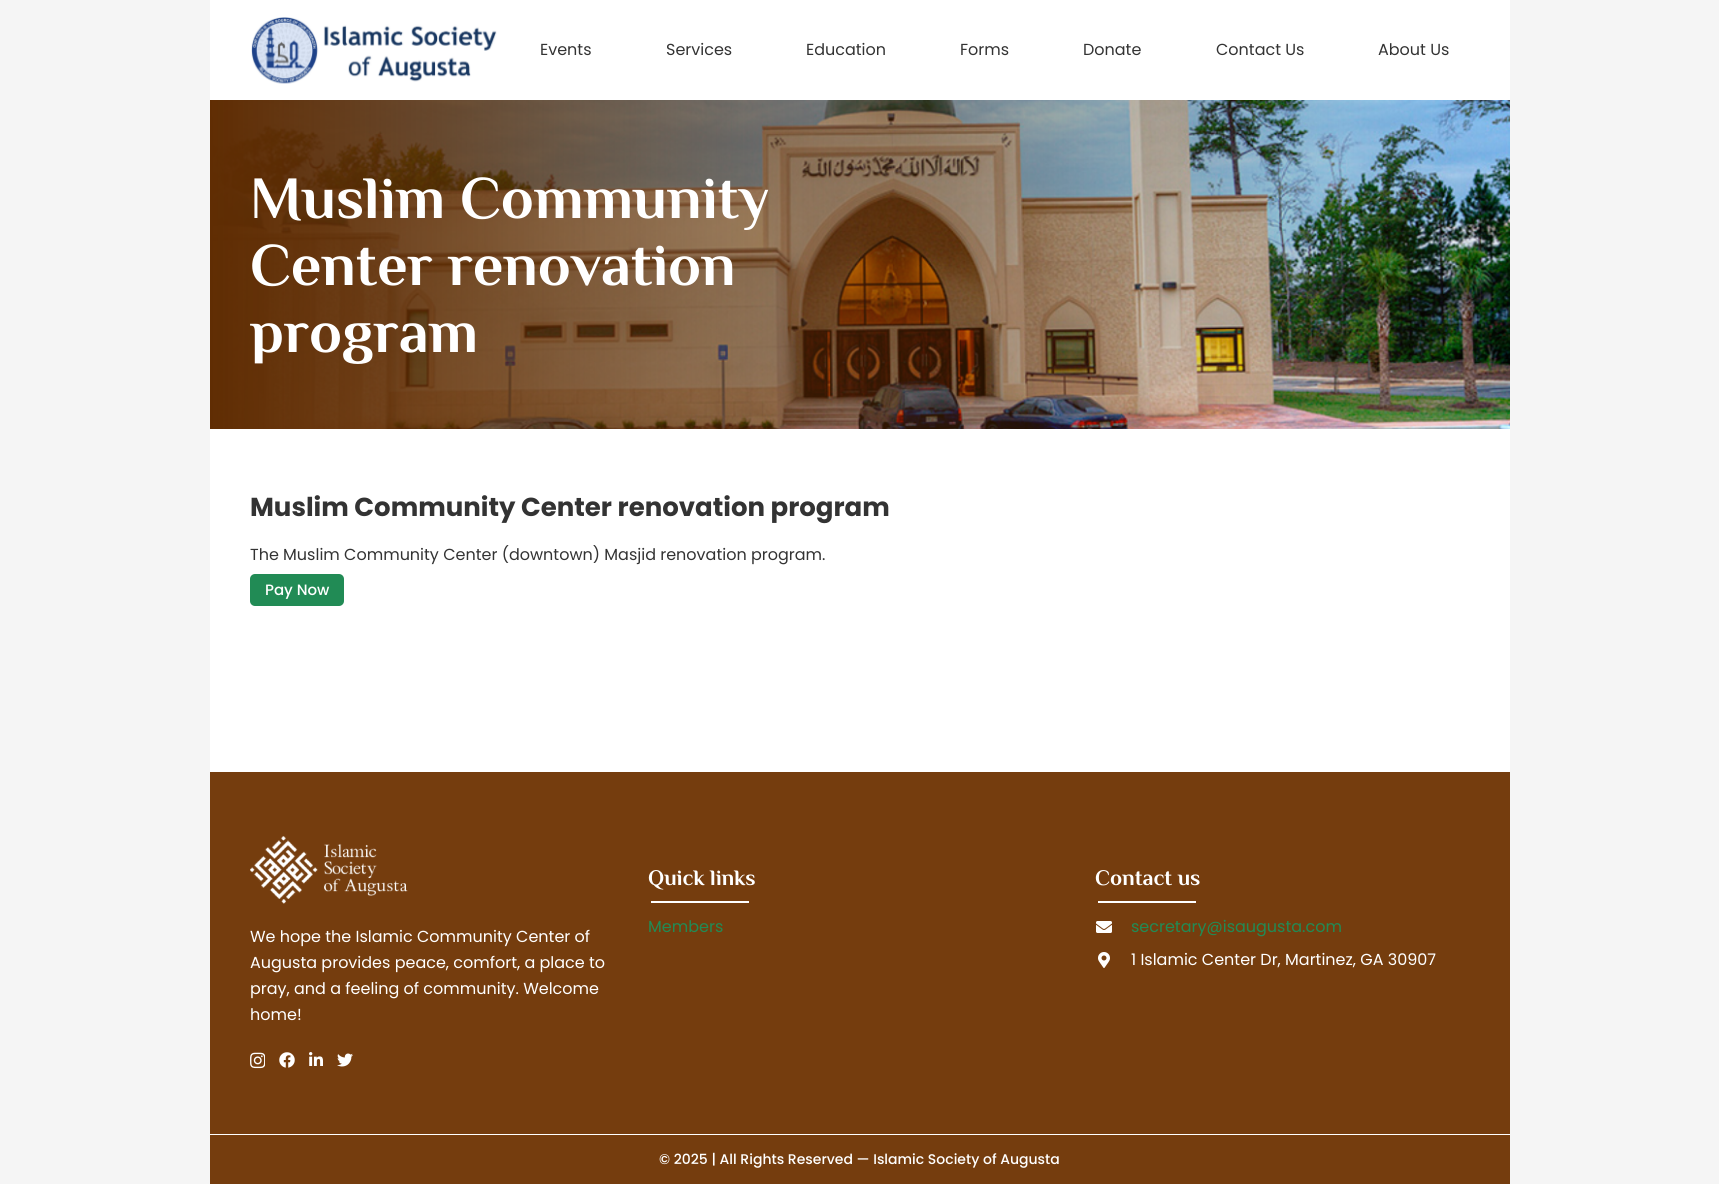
#include <cairo.h>
#include <math.h>
#include <stddef.h>

typedef struct { double x, y; const char *s; } line_t;

static void ink(cairo_t *ctx, unsigned color) {
    cairo_set_source_rgb(ctx, (color >> 16) / 255.0, (color >> 8 & 255) / 255.0, (color & 255) / 255.0);
}

static void round_path(cairo_t *ctx, double x, double y, double w, double h, double r) {
    cairo_new_sub_path(ctx);
    cairo_arc(ctx, x + w - r, y + h - r, r, 0, M_PI / 2);
    cairo_arc(ctx, x + r, y + h - r, r, M_PI / 2, M_PI);
    cairo_arc(ctx, x + r, y + r, r, M_PI, 1.5 * M_PI);
    cairo_arc(ctx, x + w - r, y + r, r, 1.5 * M_PI, 2 * M_PI);
    cairo_close_path(ctx);
}

static void paste(cairo_t *ctx, const char *path, double x, double y, double w, double h) {
    cairo_surface_t *image = cairo_image_surface_create_from_png(path);
    cairo_save(ctx);
    cairo_set_source_surface(ctx, image, x, y);
    cairo_rectangle(ctx, x, y, w, h);
    cairo_fill(ctx);
    cairo_restore(ctx);
    cairo_surface_destroy(image);
}

int main(void) {
    cairo_surface_t *surface = cairo_image_surface_create(CAIRO_FORMAT_RGB24, 1719, 1184);
    cairo_t *ctx = cairo_create(surface);
    cairo_font_options_t *options = cairo_font_options_create();
    cairo_font_options_set_hint_metrics(options, CAIRO_HINT_METRICS_OFF);
    cairo_font_options_set_hint_style(options, CAIRO_HINT_STYLE_NONE);
    cairo_set_font_options(ctx, options);
    cairo_set_miter_limit(ctx, 4);
    ink(ctx, 0xF5F5F5);
    cairo_paint(ctx);
    ink(ctx, 0xFFFFFF);
    cairo_rectangle(ctx, 210, 429, 1300, 343);
    cairo_fill(ctx);
    cairo_rectangle(ctx, 210, 0, 1300, 100);
    cairo_fill(ctx);
    paste(ctx, "media/1.png", 251, 17, 246, 67);
    cairo_select_font_face(ctx, "Poppins", CAIRO_FONT_SLANT_NORMAL, CAIRO_FONT_WEIGHT_NORMAL);
    cairo_set_font_size(ctx, 16);
    ink(ctx, 0x333333);
    {
        static const line_t items[] = {
            {540, 55, "Events"},
            {666, 55, "Services"},
            {806, 55, "Education"},
            {960, 55, "Forms"},
            {1083, 55, "Donate"},
            {1216, 55, "Contact Us"},
            {1378, 55, "About Us"},
        };
        for (size_t i = 0; i < sizeof items / sizeof *items; i++) {
            cairo_move_to(ctx, items[i].x, items[i].y);
            cairo_show_text(ctx, items[i].s);
        }
    }
    paste(ctx, "media/2.png", 210, 100, 1300, 329);
    cairo_select_font_face(ctx, "Philosopher", CAIRO_FONT_SLANT_NORMAL, CAIRO_FONT_WEIGHT_BOLD);
    cairo_set_font_size(ctx, 60);
    ink(ctx, 0xFFFFFF);
    {
        static const line_t items[] = {
            {250, 218, "Muslim Community"},
            {250, 285, "Center renovation"},
            {250, 352, "program"},
        };
        for (size_t i = 0; i < sizeof items / sizeof *items; i++) {
            cairo_move_to(ctx, items[i].x, items[i].y);
            cairo_show_text(ctx, items[i].s);
        }
    }
    cairo_select_font_face(ctx, "Poppins", CAIRO_FONT_SLANT_NORMAL, CAIRO_FONT_WEIGHT_BOLD);
    cairo_set_font_size(ctx, 26);
    ink(ctx, 0x333333);
    cairo_move_to(ctx, 250, 516);
    cairo_show_text(ctx, "Muslim Community Center renovation program");
    cairo_select_font_face(ctx, "Poppins", CAIRO_FONT_SLANT_NORMAL, CAIRO_FONT_WEIGHT_NORMAL);
    cairo_set_font_size(ctx, 16);
    cairo_move_to(ctx, 250, 560);
    cairo_show_text(ctx, "The Muslim Community Center (downtown) Masjid renovation program.");
    ink(ctx, 0x218B55);
    round_path(ctx, 250, 574, 94, 32, 5);
    cairo_fill(ctx);
    cairo_select_font_face(ctx, "Poppins Medium", CAIRO_FONT_SLANT_NORMAL, CAIRO_FONT_WEIGHT_NORMAL);
    cairo_set_font_size(ctx, 15);
    ink(ctx, 0xFFFFFF);
    cairo_move_to(ctx, 265, 595);
    cairo_show_text(ctx, "Pay Now");
    ink(ctx, 0x753D0E);
    cairo_rectangle(ctx, 210, 772, 1300, 362);
    cairo_fill(ctx);
    paste(ctx, "media/3.png", 250, 836, 158, 68);
    cairo_select_font_face(ctx, "Poppins", CAIRO_FONT_SLANT_NORMAL, CAIRO_FONT_WEIGHT_NORMAL);
    cairo_set_font_size(ctx, 16);
    ink(ctx, 0xFFFFFF);
    {
        static const line_t items[] = {
            {250, 942, "We hope the Islamic Community Center of"},
            {250, 968, "Augusta provides peace, comfort, a place to"},
            {250, 994, "pray, and a feeling of community. Welcome"},
            {250, 1020, "home!"},
        };
        for (size_t i = 0; i < sizeof items / sizeof *items; i++) {
            cairo_move_to(ctx, items[i].x, items[i].y);
            cairo_show_text(ctx, items[i].s);
        }
    }
    paste(ctx, "media/4.png", 250, 1052, 15, 17);
    paste(ctx, "media/5.png", 279, 1052, 16, 16);
    paste(ctx, "media/6.png", 309, 1052, 14, 14);
    paste(ctx, "media/7.png", 337, 1053, 16, 14);
    cairo_select_font_face(ctx, "Philosopher", CAIRO_FONT_SLANT_NORMAL, CAIRO_FONT_WEIGHT_BOLD);
    cairo_set_font_size(ctx, 22);
    cairo_move_to(ctx, 648, 885);
    cairo_show_text(ctx, "Quick links");
    cairo_rectangle(ctx, 651, 901, 98, 2);
    cairo_fill(ctx);
    cairo_select_font_face(ctx, "Poppins", CAIRO_FONT_SLANT_NORMAL, CAIRO_FONT_WEIGHT_NORMAL);
    cairo_set_font_size(ctx, 16);
    ink(ctx, 0x218B55);
    cairo_move_to(ctx, 648, 932);
    cairo_show_text(ctx, "Members");
    cairo_select_font_face(ctx, "Philosopher", CAIRO_FONT_SLANT_NORMAL, CAIRO_FONT_WEIGHT_BOLD);
    cairo_set_font_size(ctx, 22);
    ink(ctx, 0xFFFFFF);
    cairo_move_to(ctx, 1095, 885);
    cairo_show_text(ctx, "Contact us");
    cairo_rectangle(ctx, 1098, 901, 98, 2);
    cairo_fill(ctx);
    paste(ctx, "media/8.png", 1096, 921, 16, 12);
    cairo_select_font_face(ctx, "Poppins", CAIRO_FONT_SLANT_NORMAL, CAIRO_FONT_WEIGHT_NORMAL);
    cairo_set_font_size(ctx, 16);
    ink(ctx, 0x218B55);
    cairo_move_to(ctx, 1131, 932);
    cairo_show_text(ctx, "secretary@isaugusta.com");
    paste(ctx, "media/9.png", 1098, 952, 12, 16);
    ink(ctx, 0xFFFFFF);
    cairo_move_to(ctx, 1131, 965);
    cairo_show_text(ctx, "1 Islamic Center Dr, Martinez, GA 30907");
    ink(ctx, 0x753D0E);
    cairo_rectangle(ctx, 210, 1135, 1300, 49);
    cairo_fill(ctx);
    ink(ctx, 0xFFFFFF);
    cairo_rectangle(ctx, 210, 1134, 1300, 1);
    cairo_fill(ctx);
    cairo_select_font_face(ctx, "Poppins Medium", CAIRO_FONT_SLANT_NORMAL, CAIRO_FONT_WEIGHT_NORMAL);
    cairo_set_font_size(ctx, 14);
    cairo_move_to(ctx, 659, 1164);
    cairo_show_text(ctx, "© 2025 | All Rights Reserved — Islamic Society of Augusta");
    cairo_surface_write_to_png(surface, "image.png");
    cairo_font_options_destroy(options);
    cairo_destroy(ctx);
    cairo_surface_destroy(surface);
    return 0;
}
